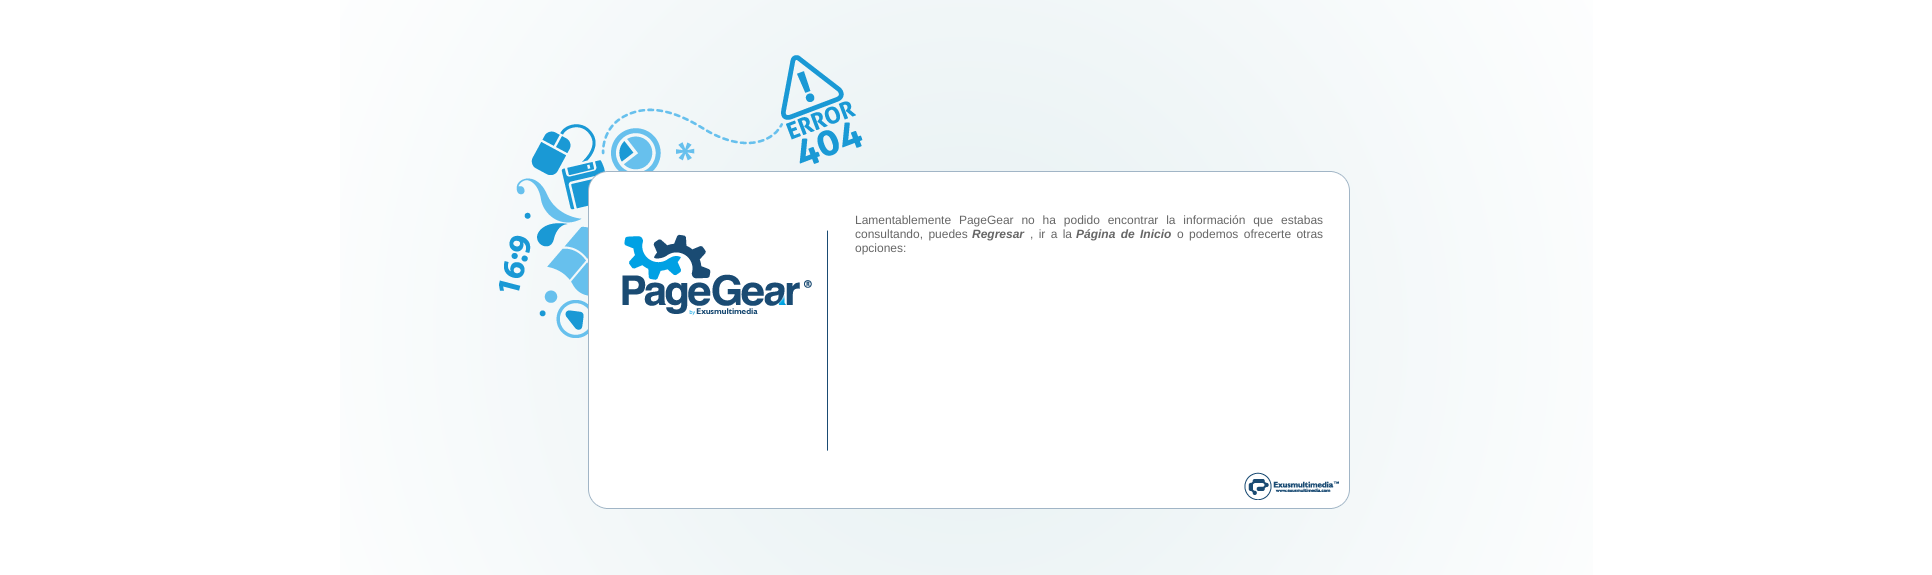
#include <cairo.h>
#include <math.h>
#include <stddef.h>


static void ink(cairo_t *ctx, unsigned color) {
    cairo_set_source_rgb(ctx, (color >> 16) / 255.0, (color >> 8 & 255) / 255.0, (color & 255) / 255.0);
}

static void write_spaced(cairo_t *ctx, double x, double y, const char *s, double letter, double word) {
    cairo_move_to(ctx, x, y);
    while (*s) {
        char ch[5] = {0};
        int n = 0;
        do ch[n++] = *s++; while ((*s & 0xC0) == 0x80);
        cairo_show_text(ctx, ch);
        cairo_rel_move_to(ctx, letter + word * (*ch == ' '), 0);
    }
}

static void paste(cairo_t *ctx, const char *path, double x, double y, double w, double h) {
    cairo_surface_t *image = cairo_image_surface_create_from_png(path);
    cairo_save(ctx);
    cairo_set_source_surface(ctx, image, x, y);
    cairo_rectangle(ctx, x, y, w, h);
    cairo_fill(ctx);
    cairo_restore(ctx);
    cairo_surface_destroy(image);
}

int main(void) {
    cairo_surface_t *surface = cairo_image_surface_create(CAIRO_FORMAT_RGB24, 1932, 575);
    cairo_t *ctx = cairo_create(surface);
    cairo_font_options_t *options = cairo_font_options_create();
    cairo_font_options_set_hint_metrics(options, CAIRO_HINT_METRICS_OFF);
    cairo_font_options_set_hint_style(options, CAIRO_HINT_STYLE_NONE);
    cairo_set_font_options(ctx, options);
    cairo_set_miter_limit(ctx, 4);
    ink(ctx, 0xFFFFFF);
    cairo_paint(ctx);
    paste(ctx, "media/1.png", 340, 0, 1253, 575);
    cairo_select_font_face(ctx, "Liberation Sans", CAIRO_FONT_SLANT_NORMAL, CAIRO_FONT_WEIGHT_NORMAL);
    cairo_set_font_size(ctx, 12);
    ink(ctx, 0x666666);
    write_spaced(ctx, 855, 224, "Lamentablemente PageGear no ha podido encontrar la información que estabas", 0, 4.5);
    write_spaced(ctx, 855, 238, "consultando, puedes", 0, 2);
    cairo_select_font_face(ctx, "Liberation Sans", CAIRO_FONT_SLANT_ITALIC, CAIRO_FONT_WEIGHT_BOLD);
    cairo_move_to(ctx, 972, 238);
    cairo_show_text(ctx, "Regresar");
    cairo_select_font_face(ctx, "Liberation Sans", CAIRO_FONT_SLANT_NORMAL, CAIRO_FONT_WEIGHT_NORMAL);
    write_spaced(ctx, 1030, 238, ", ir a la", 0, 2);
    cairo_select_font_face(ctx, "Liberation Sans", CAIRO_FONT_SLANT_ITALIC, CAIRO_FONT_WEIGHT_BOLD);
    write_spaced(ctx, 1076, 238, "Página de Inicio", 0, 2);
    cairo_select_font_face(ctx, "Liberation Sans", CAIRO_FONT_SLANT_NORMAL, CAIRO_FONT_WEIGHT_NORMAL);
    write_spaced(ctx, 1177, 238, "o podemos ofrecerte otras", 0, 2);
    cairo_move_to(ctx, 855, 252);
    cairo_show_text(ctx, "opciones:");
    cairo_surface_write_to_png(surface, "image.png");
    cairo_font_options_destroy(options);
    cairo_destroy(ctx);
    cairo_surface_destroy(surface);
    return 0;
}
